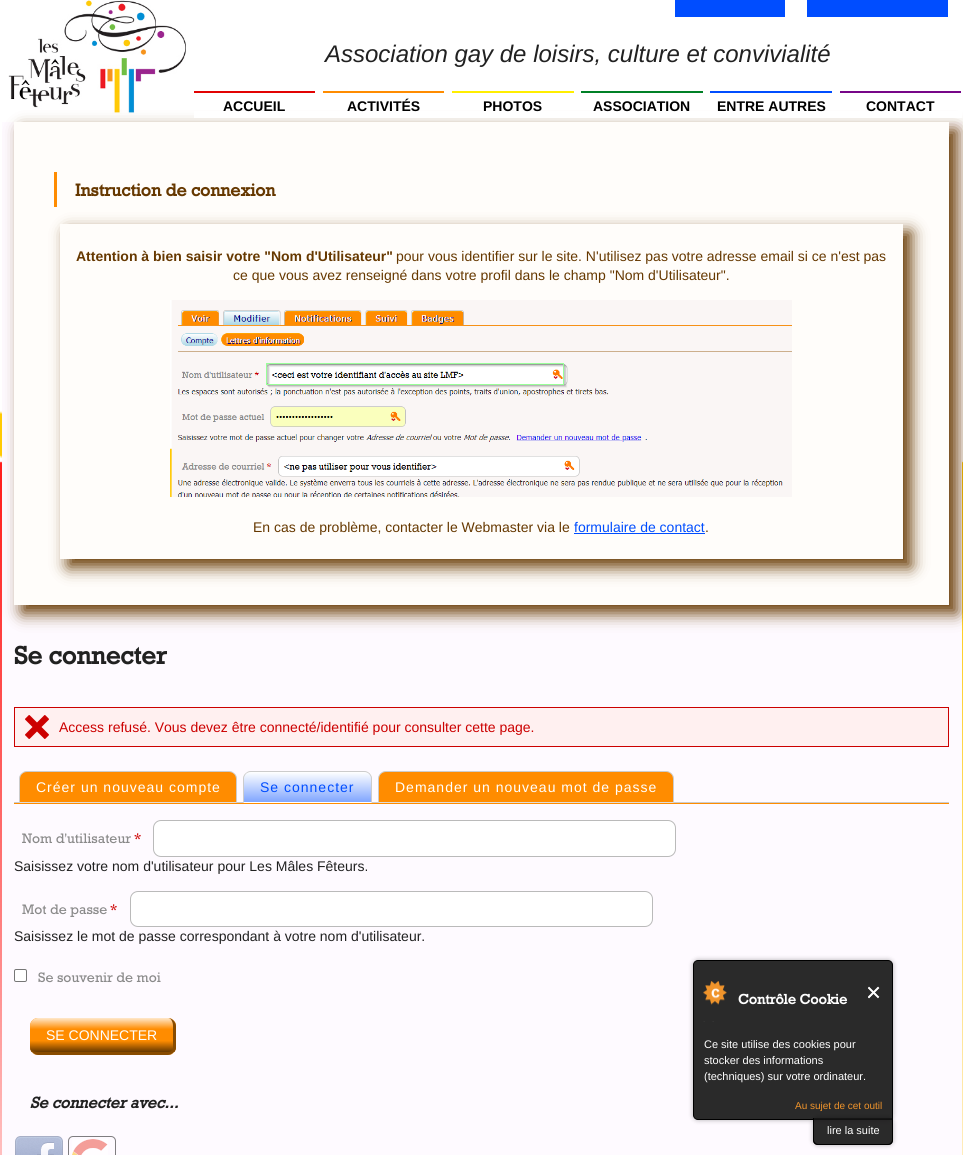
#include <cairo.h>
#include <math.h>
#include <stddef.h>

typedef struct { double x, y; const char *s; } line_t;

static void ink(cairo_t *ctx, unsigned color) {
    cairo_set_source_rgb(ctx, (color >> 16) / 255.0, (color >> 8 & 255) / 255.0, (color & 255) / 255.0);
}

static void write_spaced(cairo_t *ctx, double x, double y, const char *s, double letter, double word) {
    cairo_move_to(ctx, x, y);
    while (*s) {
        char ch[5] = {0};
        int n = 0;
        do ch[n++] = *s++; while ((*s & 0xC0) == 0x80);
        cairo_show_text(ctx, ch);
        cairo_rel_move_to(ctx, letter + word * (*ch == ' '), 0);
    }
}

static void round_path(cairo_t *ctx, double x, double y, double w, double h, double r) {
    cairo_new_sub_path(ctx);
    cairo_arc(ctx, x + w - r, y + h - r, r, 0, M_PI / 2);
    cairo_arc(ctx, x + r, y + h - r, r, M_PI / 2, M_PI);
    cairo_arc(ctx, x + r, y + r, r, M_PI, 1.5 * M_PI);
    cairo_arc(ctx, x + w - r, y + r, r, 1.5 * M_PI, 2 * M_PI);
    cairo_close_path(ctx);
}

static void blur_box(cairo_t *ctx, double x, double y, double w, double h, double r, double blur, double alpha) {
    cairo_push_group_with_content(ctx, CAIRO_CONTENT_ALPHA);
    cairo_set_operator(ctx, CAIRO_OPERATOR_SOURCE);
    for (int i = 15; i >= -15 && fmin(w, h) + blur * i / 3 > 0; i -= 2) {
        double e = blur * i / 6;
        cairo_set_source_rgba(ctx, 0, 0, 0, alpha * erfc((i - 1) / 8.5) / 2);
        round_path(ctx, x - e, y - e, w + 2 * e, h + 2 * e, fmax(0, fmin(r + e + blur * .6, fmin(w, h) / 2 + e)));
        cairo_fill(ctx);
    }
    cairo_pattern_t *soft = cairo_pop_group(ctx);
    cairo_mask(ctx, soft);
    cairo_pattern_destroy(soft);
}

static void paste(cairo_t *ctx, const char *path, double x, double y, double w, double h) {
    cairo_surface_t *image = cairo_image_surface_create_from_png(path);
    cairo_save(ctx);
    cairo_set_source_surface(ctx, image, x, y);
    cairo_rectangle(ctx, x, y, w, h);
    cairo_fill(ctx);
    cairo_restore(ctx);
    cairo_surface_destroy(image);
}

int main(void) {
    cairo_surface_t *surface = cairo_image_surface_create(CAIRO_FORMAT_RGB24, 963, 1155);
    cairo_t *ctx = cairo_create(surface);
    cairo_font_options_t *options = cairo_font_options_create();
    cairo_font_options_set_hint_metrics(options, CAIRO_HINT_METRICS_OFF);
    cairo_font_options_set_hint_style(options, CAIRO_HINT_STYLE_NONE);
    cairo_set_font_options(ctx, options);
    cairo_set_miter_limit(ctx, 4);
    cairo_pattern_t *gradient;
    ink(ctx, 0xFFFFFF);
    cairo_paint(ctx);
    paste(ctx, "media/1.png", 0, 411, 963, 744);
    paste(ctx, "media/2.png", 8, 0, 178, 122);
    ink(ctx, 0x004DFF);
    cairo_rectangle(ctx, 675, 0, 110, 17);
    cairo_fill(ctx);
    cairo_rectangle(ctx, 807, 0, 141, 17);
    cairo_fill(ctx);
    cairo_select_font_face(ctx, "Liberation Sans", CAIRO_FONT_SLANT_ITALIC, CAIRO_FONT_WEIGHT_NORMAL);
    cairo_set_font_size(ctx, 24);
    ink(ctx, 0x212121);
    cairo_move_to(ctx, 325, 62);
    cairo_show_text(ctx, "Association gay de loisirs, culture et convivialité");
    ink(ctx, 0xFEFAFF);
    cairo_rectangle(ctx, 2, 122, 960, 1033);
    cairo_fill(ctx);
    ink(ctx, 0x663800);
    blur_box(ctx, 22, 130, 935, 483, 0, 8, 1);
    ink(ctx, 0xFFFFFF);
    cairo_rectangle(ctx, 194, 111, 768, 7);
    cairo_fill(ctx);
    ink(ctx, 0xE20303);
    cairo_rectangle(ctx, 194, 91, 121, 2);
    cairo_fill(ctx);
    cairo_select_font_face(ctx, "Liberation Sans", CAIRO_FONT_SLANT_NORMAL, CAIRO_FONT_WEIGHT_BOLD);
    cairo_set_font_size(ctx, 14);
    ink(ctx, 0x000000);
    cairo_move_to(ctx, 223, 111);
    cairo_show_text(ctx, "ACCUEIL");
    ink(ctx, 0xFF8C00);
    cairo_rectangle(ctx, 323, 91, 121, 2);
    cairo_fill(ctx);
    ink(ctx, 0x000000);
    cairo_move_to(ctx, 347, 111);
    cairo_show_text(ctx, "ACTIVITÉS");
    ink(ctx, 0xFFEE00);
    cairo_rectangle(ctx, 452, 91, 122, 2);
    cairo_fill(ctx);
    ink(ctx, 0x000000);
    cairo_move_to(ctx, 483, 111);
    cairo_show_text(ctx, "PHOTOS");
    ink(ctx, 0x008026);
    cairo_rectangle(ctx, 581, 91, 122, 2);
    cairo_fill(ctx);
    ink(ctx, 0x000000);
    cairo_move_to(ctx, 593, 111);
    cairo_show_text(ctx, "ASSOCIATION");
    ink(ctx, 0x004DFF);
    cairo_rectangle(ctx, 710, 91, 122, 2);
    cairo_fill(ctx);
    ink(ctx, 0x000000);
    cairo_move_to(ctx, 717, 111);
    cairo_show_text(ctx, "ENTRE AUTRES");
    ink(ctx, 0x770788);
    cairo_rectangle(ctx, 840, 91, 121, 2);
    cairo_fill(ctx);
    ink(ctx, 0x000000);
    cairo_move_to(ctx, 866, 111);
    cairo_show_text(ctx, "CONTACT");
    ink(ctx, 0xFFFDFA);
    cairo_rectangle(ctx, 14, 122, 935, 483);
    cairo_fill(ctx);
    ink(ctx, 0xFF8C00);
    cairo_rectangle(ctx, 54, 172, 3, 35);
    cairo_fill(ctx);
    cairo_select_font_face(ctx, "Rockwell", CAIRO_FONT_SLANT_NORMAL, CAIRO_FONT_WEIGHT_BOLD);
    cairo_set_font_size(ctx, 17.6);
    ink(ctx, 0x663800);
    cairo_move_to(ctx, 75, 196);
    cairo_show_text(ctx, "Instruction de connexion");
    cairo_save(ctx);
    cairo_set_fill_rule(ctx, CAIRO_FILL_RULE_EVEN_ODD);
    cairo_new_path(ctx);
    cairo_move_to(ctx, 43, 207);
    cairo_line_to(ctx, 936, 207);
    cairo_line_to(ctx, 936, 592);
    cairo_line_to(ctx, 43, 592);
    cairo_close_path(ctx);
    cairo_move_to(ctx, 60, 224);
    cairo_line_to(ctx, 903, 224);
    cairo_line_to(ctx, 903, 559);
    cairo_line_to(ctx, 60, 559);
    cairo_close_path(ctx);
    cairo_clip(ctx);
    ink(ctx, 0x663800);
    blur_box(ctx, 68, 232, 843, 335, 0, 8, 1);
    cairo_restore(ctx);
    cairo_select_font_face(ctx, "Liberation Sans", CAIRO_FONT_SLANT_NORMAL, CAIRO_FONT_WEIGHT_BOLD);
    cairo_set_font_size(ctx, 14);
    cairo_move_to(ctx, 76, 261);
    cairo_show_text(ctx, "Attention à bien saisir votre \"Nom d'Utilisateur\"");
    cairo_select_font_face(ctx, "Liberation Sans", CAIRO_FONT_SLANT_NORMAL, CAIRO_FONT_WEIGHT_NORMAL);
    cairo_move_to(ctx, 396, 261);
    cairo_show_text(ctx, "pour vous identifier sur le site. N'utilisez pas votre adresse email si ce n'est pas");
    cairo_move_to(ctx, 233, 280);
    cairo_show_text(ctx, "ce que vous avez renseigné dans votre profil dans le champ \"Nom d'Utilisateur\".");
    paste(ctx, "media/3.png", 170, 300, 622, 197);
    cairo_move_to(ctx, 253, 532);
    cairo_show_text(ctx, "En cas de problème, contacter le Webmaster via le");
    ink(ctx, 0x004DFF);
    cairo_move_to(ctx, 574, 532);
    cairo_show_text(ctx, "formulaire de contact");
    cairo_rectangle(ctx, 574, 533, 131, 1);
    cairo_fill(ctx);
    ink(ctx, 0x663800);
    cairo_move_to(ctx, 705, 532);
    cairo_show_text(ctx, ".");
    cairo_select_font_face(ctx, "Rockwell", CAIRO_FONT_SLANT_NORMAL, CAIRO_FONT_WEIGHT_BOLD);
    cairo_set_font_size(ctx, 25.5);
    ink(ctx, 0x212121);
    cairo_move_to(ctx, 14, 664);
    cairo_show_text(ctx, "Se connecter");
    ink(ctx, 0xFFF0F0);
    cairo_rectangle(ctx, 14.5, 707.5, 934, 39);
    cairo_fill_preserve(ctx);
    ink(ctx, 0xCC0000);
    cairo_set_line_width(ctx, 1);
    cairo_stroke(ctx);
    paste(ctx, "media/4.png", 25, 715, 24, 24);
    cairo_select_font_face(ctx, "Liberation Sans", CAIRO_FONT_SLANT_NORMAL, CAIRO_FONT_WEIGHT_NORMAL);
    cairo_set_font_size(ctx, 14);
    cairo_move_to(ctx, 59, 732);
    cairo_show_text(ctx, "Access refusé. Vous devez être connecté/identifié pour consulter cette page.");
    ink(ctx, 0xCCCCCC);
    cairo_rectangle(ctx, 14, 802, 935, 1);
    cairo_fill(ctx);
    ink(ctx, 0xFF8C00);
    cairo_rectangle(ctx, 14, 803, 935, 1);
    cairo_fill(ctx);
    ink(ctx, 0xDDDDDD);
    cairo_new_path(ctx);
    cairo_move_to(ctx, 27, 771);
    cairo_line_to(ctx, 229, 771);
    cairo_curve_to(ctx, 233.5, 771, 237, 774.5, 237, 779);
    cairo_line_to(ctx, 237, 803);
    cairo_line_to(ctx, 19, 803);
    cairo_line_to(ctx, 19, 779);
    cairo_curve_to(ctx, 19, 774.5, 22.5, 771, 27, 771);
    cairo_close_path(ctx);
    cairo_fill(ctx);
    ink(ctx, 0xCCCCCC);
    cairo_new_path(ctx);
    cairo_move_to(ctx, 27, 771);
    cairo_curve_to(ctx, 25, 771, 23, 772, 22, 774);
    cairo_curve_to(ctx, 23, 773, 25, 772, 27, 772);
    cairo_line_to(ctx, 229, 772);
    cairo_curve_to(ctx, 231, 772, 233, 773, 234, 774);
    cairo_curve_to(ctx, 233, 772, 231, 771, 229, 771);
    cairo_close_path(ctx);
    cairo_fill(ctx);
    cairo_new_path(ctx);
    cairo_move_to(ctx, 237, 803);
    cairo_line_to(ctx, 237, 779);
    cairo_curve_to(ctx, 237, 777, 236, 775, 234.5, 773.5);
    cairo_line_to(ctx, 234, 774);
    cairo_curve_to(ctx, 235, 775, 236, 777, 236, 779);
    cairo_line_to(ctx, 236, 802);
    cairo_close_path(ctx);
    cairo_fill(ctx);
    cairo_new_path(ctx);
    cairo_move_to(ctx, 19, 803);
    cairo_line_to(ctx, 20, 802);
    cairo_line_to(ctx, 20, 779);
    cairo_curve_to(ctx, 20, 777, 21, 775, 22, 774);
    cairo_line_to(ctx, 21.5, 773.5);
    cairo_curve_to(ctx, 20, 775, 19, 777, 19, 779);
    cairo_close_path(ctx);
    cairo_fill(ctx);
    ink(ctx, 0xFF8C00);
    cairo_new_path(ctx);
    cairo_move_to(ctx, 27, 772);
    cairo_line_to(ctx, 229, 772);
    cairo_curve_to(ctx, 233, 772, 236, 775, 236, 779);
    cairo_line_to(ctx, 236, 802);
    cairo_line_to(ctx, 20, 802);
    cairo_line_to(ctx, 20, 779);
    cairo_curve_to(ctx, 20, 775, 23, 772, 27, 772);
    cairo_close_path(ctx);
    cairo_fill(ctx);
    ink(ctx, 0xFFFFFF);
    write_spaced(ctx, 36, 792, "Créer un nouveau compte", 1, 0);
    ink(ctx, 0xDDDDDD);
    cairo_new_path(ctx);
    cairo_move_to(ctx, 251, 771);
    cairo_line_to(ctx, 364, 771);
    cairo_curve_to(ctx, 368.5, 771, 372, 774.5, 372, 779);
    cairo_line_to(ctx, 372, 803);
    cairo_line_to(ctx, 243, 803);
    cairo_line_to(ctx, 243, 779);
    cairo_curve_to(ctx, 243, 774.5, 246.5, 771, 251, 771);
    cairo_close_path(ctx);
    cairo_fill(ctx);
    ink(ctx, 0xCCCCCC);
    cairo_new_path(ctx);
    cairo_move_to(ctx, 251, 771);
    cairo_curve_to(ctx, 249, 771, 247, 772, 246, 774);
    cairo_curve_to(ctx, 247, 773, 249, 772, 251, 772);
    cairo_line_to(ctx, 364, 772);
    cairo_curve_to(ctx, 366, 772, 368, 773, 369, 774);
    cairo_line_to(ctx, 370, 774);
    cairo_curve_to(ctx, 368, 772, 366, 771, 364, 771);
    cairo_close_path(ctx);
    cairo_fill(ctx);
    cairo_new_path(ctx);
    cairo_move_to(ctx, 372, 803);
    cairo_line_to(ctx, 372, 779);
    cairo_curve_to(ctx, 372, 777, 371, 775, 369.5, 773.5);
    cairo_line_to(ctx, 369, 774);
    cairo_curve_to(ctx, 370, 775, 371, 777, 371, 779);
    cairo_line_to(ctx, 371, 802);
    cairo_close_path(ctx);
    cairo_fill(ctx);
    ink(ctx, 0xFFFFFF);
    cairo_new_path(ctx);
    cairo_move_to(ctx, 372, 803);
    cairo_line_to(ctx, 371, 802);
    cairo_line_to(ctx, 244, 802);
    cairo_line_to(ctx, 243, 803);
    cairo_close_path(ctx);
    cairo_fill(ctx);
    ink(ctx, 0xCCCCCC);
    cairo_new_path(ctx);
    cairo_move_to(ctx, 243, 803);
    cairo_line_to(ctx, 244, 802);
    cairo_line_to(ctx, 244, 779);
    cairo_curve_to(ctx, 244, 777, 245, 775, 246, 774);
    cairo_line_to(ctx, 245.5, 773.5);
    cairo_curve_to(ctx, 244, 775, 243, 777, 243, 779);
    cairo_close_path(ctx);
    cairo_fill(ctx);
    gradient = cairo_pattern_create_linear(308, 772, 308, 802);
    cairo_pattern_add_color_stop_rgba(gradient, 0, 1, 1, 1, 1);
    cairo_pattern_add_color_stop_rgba(gradient, 1, 0.502, 0.651, 1, 1);
    cairo_set_source(ctx, gradient);
    cairo_pattern_destroy(gradient);
    cairo_new_path(ctx);
    cairo_move_to(ctx, 251, 772);
    cairo_line_to(ctx, 364, 772);
    cairo_curve_to(ctx, 368, 772, 371, 775, 371, 779);
    cairo_line_to(ctx, 371, 802);
    cairo_line_to(ctx, 244, 802);
    cairo_line_to(ctx, 244, 779);
    cairo_curve_to(ctx, 244, 775, 247, 772, 251, 772);
    cairo_close_path(ctx);
    cairo_fill(ctx);
    ink(ctx, 0x004DFF);
    write_spaced(ctx, 260, 792, "Se connecter", 1, 0);
    ink(ctx, 0xDDDDDD);
    cairo_new_path(ctx);
    cairo_move_to(ctx, 386, 771);
    cairo_line_to(ctx, 666, 771);
    cairo_curve_to(ctx, 670.5, 771, 674, 774.5, 674, 779);
    cairo_line_to(ctx, 674, 803);
    cairo_line_to(ctx, 378, 803);
    cairo_line_to(ctx, 378, 779);
    cairo_curve_to(ctx, 378, 774.5, 381.5, 771, 386, 771);
    cairo_close_path(ctx);
    cairo_fill(ctx);
    ink(ctx, 0xCCCCCC);
    cairo_new_path(ctx);
    cairo_move_to(ctx, 386, 771);
    cairo_curve_to(ctx, 384, 771, 382, 772, 380, 774);
    cairo_line_to(ctx, 381, 774);
    cairo_curve_to(ctx, 382, 773, 384, 772, 386, 772);
    cairo_line_to(ctx, 666, 772);
    cairo_curve_to(ctx, 668, 772, 670, 773, 671, 774);
    cairo_line_to(ctx, 672, 774);
    cairo_curve_to(ctx, 670, 772, 668, 771, 666, 771);
    cairo_close_path(ctx);
    cairo_fill(ctx);
    cairo_new_path(ctx);
    cairo_move_to(ctx, 674, 803);
    cairo_line_to(ctx, 674, 779);
    cairo_curve_to(ctx, 674, 777, 673, 775, 671.5, 773.5);
    cairo_line_to(ctx, 671, 774);
    cairo_curve_to(ctx, 672, 775, 673, 777, 673, 779);
    cairo_line_to(ctx, 673, 802);
    cairo_close_path(ctx);
    cairo_fill(ctx);
    cairo_new_path(ctx);
    cairo_move_to(ctx, 378, 803);
    cairo_line_to(ctx, 379, 802);
    cairo_line_to(ctx, 379, 779);
    cairo_curve_to(ctx, 379, 777, 380, 775, 381, 774);
    cairo_line_to(ctx, 380.5, 773.5);
    cairo_curve_to(ctx, 379, 775, 378, 777, 378, 779);
    cairo_close_path(ctx);
    cairo_fill(ctx);
    ink(ctx, 0xFF8C00);
    cairo_new_path(ctx);
    cairo_move_to(ctx, 386, 772);
    cairo_line_to(ctx, 666, 772);
    cairo_curve_to(ctx, 670, 772, 673, 775, 673, 779);
    cairo_line_to(ctx, 673, 802);
    cairo_line_to(ctx, 379, 802);
    cairo_line_to(ctx, 379, 779);
    cairo_curve_to(ctx, 379, 775, 382, 772, 386, 772);
    cairo_close_path(ctx);
    cairo_fill(ctx);
    ink(ctx, 0xFFFFFF);
    write_spaced(ctx, 395, 792, "Demander un nouveau mot de passe", 1, 0);
    cairo_select_font_face(ctx, "Rockwell", CAIRO_FONT_SLANT_NORMAL, CAIRO_FONT_WEIGHT_NORMAL);
    ink(ctx, 0x8A8A8A);
    cairo_move_to(ctx, 22, 843);
    cairo_show_text(ctx, "Nom d'utilisateur");
    ink(ctx, 0xCC0000);
    cairo_move_to(ctx, 134, 843);
    cairo_show_text(ctx, "*");
    ink(ctx, 0xFFFFFF);
    round_path(ctx, 153.5, 820.5, 522, 36, 7.5);
    cairo_fill_preserve(ctx);
    ink(ctx, 0xBABABA);
    cairo_stroke(ctx);
    cairo_select_font_face(ctx, "Liberation Sans", CAIRO_FONT_SLANT_NORMAL, CAIRO_FONT_WEIGHT_NORMAL);
    ink(ctx, 0x212121);
    cairo_move_to(ctx, 14, 871);
    cairo_show_text(ctx, "Saisissez votre nom d'utilisateur pour Les Mâles Fêteurs.");
    cairo_select_font_face(ctx, "Rockwell", CAIRO_FONT_SLANT_NORMAL, CAIRO_FONT_WEIGHT_NORMAL);
    ink(ctx, 0x8A8A8A);
    cairo_move_to(ctx, 22, 914);
    cairo_show_text(ctx, "Mot de passe");
    ink(ctx, 0xCC0000);
    cairo_move_to(ctx, 110, 914);
    cairo_show_text(ctx, "*");
    ink(ctx, 0xFFFFFF);
    round_path(ctx, 130.5, 891.5, 522, 35, 7.5);
    cairo_fill_preserve(ctx);
    ink(ctx, 0xBABABA);
    cairo_stroke(ctx);
    cairo_select_font_face(ctx, "Liberation Sans", CAIRO_FONT_SLANT_NORMAL, CAIRO_FONT_WEIGHT_NORMAL);
    ink(ctx, 0x212121);
    cairo_move_to(ctx, 14, 941);
    cairo_show_text(ctx, "Saisissez le mot de passe correspondant à votre nom d'utilisateur.");
    ink(ctx, 0xFFFFFF);
    round_path(ctx, 14.5, 969.5, 12, 12, 1.5);
    cairo_fill_preserve(ctx);
    ink(ctx, 0x767676);
    cairo_stroke(ctx);
    cairo_select_font_face(ctx, "Rockwell", CAIRO_FONT_SLANT_NORMAL, CAIRO_FONT_WEIGHT_NORMAL);
    ink(ctx, 0x8A8A8A);
    cairo_move_to(ctx, 38, 982);
    cairo_show_text(ctx, "Se souvenir de moi");
    ink(ctx, 0xFF8C00);
    round_path(ctx, 30, 1018, 146, 37, 8);
    cairo_fill(ctx);
    cairo_save(ctx);
    round_path(ctx, 30, 1018, 146, 37, 8);
    cairo_clip(ctx);
    gradient = cairo_pattern_create_linear(102, 1018, 102, 1052);
    cairo_pattern_add_color_stop_rgba(gradient, 0, 1, 0.91, 0.8, 1);
    cairo_pattern_add_color_stop_rgba(gradient, 0.33, 1, 0.549, 0, 1);
    cairo_pattern_add_color_stop_rgba(gradient, 0.67, 1, 0.549, 0, 1);
    cairo_pattern_add_color_stop_rgba(gradient, 1, 0.4, 0.22, 0, 1);
    cairo_set_source(ctx, gradient);
    cairo_pattern_destroy(gradient);
    cairo_new_path(ctx);
    cairo_move_to(ctx, 38, 1018);
    cairo_line_to(ctx, 168, 1018);
    cairo_curve_to(ctx, 172.5, 1018, 176, 1021.5, 176, 1026);
    cairo_line_to(ctx, 176, 1052);
    cairo_line_to(ctx, 30, 1052);
    cairo_line_to(ctx, 30, 1026);
    cairo_curve_to(ctx, 30, 1021.5, 33.5, 1018, 38, 1018);
    cairo_close_path(ctx);
    cairo_fill(ctx);
    gradient = cairo_pattern_create_linear(102, 1052, 102, 1086);
    cairo_pattern_add_color_stop_rgba(gradient, 0, 1, 0.91, 0.8, 1);
    cairo_pattern_add_color_stop_rgba(gradient, 0.33, 1, 0.549, 0, 1);
    cairo_pattern_add_color_stop_rgba(gradient, 0.67, 1, 0.549, 0, 1);
    cairo_pattern_add_color_stop_rgba(gradient, 1, 0.4, 0.22, 0, 1);
    cairo_set_source(ctx, gradient);
    cairo_pattern_destroy(gradient);
    cairo_rectangle(ctx, 30, 1052, 146, 3);
    cairo_fill(ctx);
    cairo_restore(ctx);
    ink(ctx, 0x884B00);
    cairo_set_fill_rule(ctx, CAIRO_FILL_RULE_EVEN_ODD);
    cairo_new_path(ctx);
    cairo_move_to(ctx, 38, 1018);
    cairo_line_to(ctx, 168, 1018);
    cairo_curve_to(ctx, 172, 1018, 176, 1022, 176, 1026);
    cairo_line_to(ctx, 176, 1047);
    cairo_curve_to(ctx, 176, 1051, 172, 1055, 168, 1055);
    cairo_line_to(ctx, 38, 1055);
    cairo_curve_to(ctx, 34, 1055, 30, 1051, 30, 1047);
    cairo_line_to(ctx, 30, 1026);
    cairo_curve_to(ctx, 30, 1022, 34, 1018, 38, 1018);
    cairo_close_path(ctx);
    cairo_move_to(ctx, 38, 1018);
    cairo_line_to(ctx, 168, 1018);
    cairo_curve_to(ctx, 171, 1018, 173, 1022, 173, 1026);
    cairo_line_to(ctx, 173, 1047);
    cairo_curve_to(ctx, 173, 1050, 171, 1052, 168, 1052);
    cairo_line_to(ctx, 38, 1052);
    cairo_curve_to(ctx, 34, 1052, 30, 1050, 30, 1047);
    cairo_line_to(ctx, 30, 1026);
    cairo_curve_to(ctx, 30, 1022, 34, 1018, 38, 1018);
    cairo_close_path(ctx);
    cairo_fill(ctx);
    cairo_select_font_face(ctx, "Liberation Sans", CAIRO_FONT_SLANT_NORMAL, CAIRO_FONT_WEIGHT_NORMAL);
    ink(ctx, 0xFFFFFF);
    cairo_move_to(ctx, 46, 1040);
    cairo_show_text(ctx, "SE CONNECTER");
    cairo_select_font_face(ctx, "Rockwell", CAIRO_FONT_SLANT_ITALIC, CAIRO_FONT_WEIGHT_BOLD);
    cairo_set_font_size(ctx, 16);
    ink(ctx, 0x212121);
    cairo_move_to(ctx, 30, 1108);
    cairo_show_text(ctx, "Se connecter avec...");
    paste(ctx, "media/5.png", 15, 1136, 48, 19);
    paste(ctx, "media/6.png", 72, 1139, 36, 16);
    round_path(ctx, 68.5, 1136.5, 47, 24, 4.5);
    ink(ctx, 0x7F7D80);
    cairo_stroke(ctx);
    cairo_save(ctx);
    cairo_new_path(ctx);
    cairo_move_to(ctx, 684, 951);
    cairo_line_to(ctx, 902, 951);
    cairo_line_to(ctx, 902, 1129);
    cairo_line_to(ctx, 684, 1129);
    cairo_close_path(ctx);
    cairo_move_to(ctx, 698, 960);
    cairo_line_to(ctx, 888, 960);
    cairo_curve_to(ctx, 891, 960, 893, 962, 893, 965);
    cairo_line_to(ctx, 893, 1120);
    cairo_line_to(ctx, 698, 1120);
    cairo_curve_to(ctx, 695, 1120, 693, 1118, 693, 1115);
    cairo_line_to(ctx, 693, 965);
    cairo_curve_to(ctx, 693, 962, 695, 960, 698, 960);
    cairo_close_path(ctx);
    cairo_clip(ctx);
    ink(ctx, 0x000000);
    blur_box(ctx, 693, 960, 200, 160, 5, 2.5, 0.3);
    cairo_restore(ctx);
    cairo_set_source_rgba(ctx, 0.078, 0.078, 0.078, 0.9);
    cairo_new_path(ctx);
    cairo_move_to(ctx, 698, 960.5);
    cairo_line_to(ctx, 888, 960.5);
    cairo_curve_to(ctx, 890.5, 960.5, 892.5, 962.5, 892.5, 965);
    cairo_line_to(ctx, 892.5, 1119.5);
    cairo_line_to(ctx, 698, 1119.5);
    cairo_curve_to(ctx, 695.5, 1119.5, 693.5, 1117.5, 693.5, 1115);
    cairo_line_to(ctx, 693.5, 965);
    cairo_curve_to(ctx, 693.5, 962.5, 695.5, 960.5, 698, 960.5);
    cairo_close_path(ctx);
    cairo_fill_preserve(ctx);
    ink(ctx, 0x000000);
    cairo_stroke(ctx);
    paste(ctx, "media/7.png", 703, 981, 24, 41);
    cairo_select_font_face(ctx, "Rockwell", CAIRO_FONT_SLANT_NORMAL, CAIRO_FONT_WEIGHT_BOLD);
    cairo_set_font_size(ctx, 14.25);
    ink(ctx, 0xFFFFFF);
    cairo_move_to(ctx, 738, 1004);
    cairo_show_text(ctx, "Contrôle Cookie");
    paste(ctx, "media/8.png", 868, 986, 12, 13);
    cairo_select_font_face(ctx, "Liberation Sans", CAIRO_FONT_SLANT_NORMAL, CAIRO_FONT_WEIGHT_NORMAL);
    cairo_set_font_size(ctx, 11);
    {
        static const line_t items[] = {
            {704, 1048, "Ce site utilise des cookies pour"},
            {704, 1064, "stocker des informations"},
            {704, 1080, "(techniques) sur votre ordinateur."},
        };
        for (size_t i = 0; i < sizeof items / sizeof *items; i++) {
            cairo_move_to(ctx, items[i].x, items[i].y);
            cairo_show_text(ctx, items[i].s);
        }
    }
    cairo_save(ctx);
    cairo_new_path(ctx);
    cairo_move_to(ctx, 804, 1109);
    cairo_line_to(ctx, 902, 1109);
    cairo_line_to(ctx, 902, 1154);
    cairo_line_to(ctx, 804, 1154);
    cairo_close_path(ctx);
    cairo_move_to(ctx, 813, 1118);
    cairo_line_to(ctx, 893, 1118);
    cairo_line_to(ctx, 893, 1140);
    cairo_curve_to(ctx, 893, 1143, 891, 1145, 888, 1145);
    cairo_line_to(ctx, 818, 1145);
    cairo_curve_to(ctx, 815, 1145, 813, 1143, 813, 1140);
    cairo_close_path(ctx);
    cairo_clip(ctx);
    ink(ctx, 0x000000);
    blur_box(ctx, 813, 1118, 80, 27, 5, 2.5, 0.3);
    cairo_restore(ctx);
    cairo_set_font_size(ctx, 10);
    ink(ctx, 0xF0942B);
    cairo_move_to(ctx, 795, 1109);
    cairo_show_text(ctx, "Au sujet de cet outil");
    cairo_set_source_rgba(ctx, 0.078, 0.078, 0.078, 0.9);
    cairo_new_path(ctx);
    cairo_move_to(ctx, 813, 1118);
    cairo_line_to(ctx, 893, 1118);
    cairo_line_to(ctx, 893, 1140);
    cairo_curve_to(ctx, 893, 1143, 891, 1145, 888, 1145);
    cairo_line_to(ctx, 818, 1145);
    cairo_curve_to(ctx, 815, 1145, 813, 1143, 813, 1140);
    cairo_close_path(ctx);
    cairo_fill(ctx);
    ink(ctx, 0x000000);
    cairo_new_path(ctx);
    cairo_move_to(ctx, 813, 1118);
    cairo_line_to(ctx, 893, 1118);
    cairo_line_to(ctx, 893, 1140);
    cairo_curve_to(ctx, 893, 1143, 891, 1145, 888, 1145);
    cairo_line_to(ctx, 818, 1145);
    cairo_curve_to(ctx, 815, 1145, 813, 1143, 813, 1140);
    cairo_close_path(ctx);
    cairo_move_to(ctx, 814, 1118);
    cairo_line_to(ctx, 892, 1118);
    cairo_line_to(ctx, 892, 1140);
    cairo_curve_to(ctx, 892, 1142, 890, 1144, 888, 1144);
    cairo_line_to(ctx, 818, 1144);
    cairo_curve_to(ctx, 816, 1144, 814, 1142, 814, 1140);
    cairo_close_path(ctx);
    cairo_fill(ctx);
    cairo_set_font_size(ctx, 11);
    ink(ctx, 0xFFFFFF);
    cairo_move_to(ctx, 827, 1134);
    cairo_show_text(ctx, "lire la suite");
    cairo_surface_write_to_png(surface, "image.png");
    cairo_font_options_destroy(options);
    cairo_destroy(ctx);
    cairo_surface_destroy(surface);
    return 0;
}
